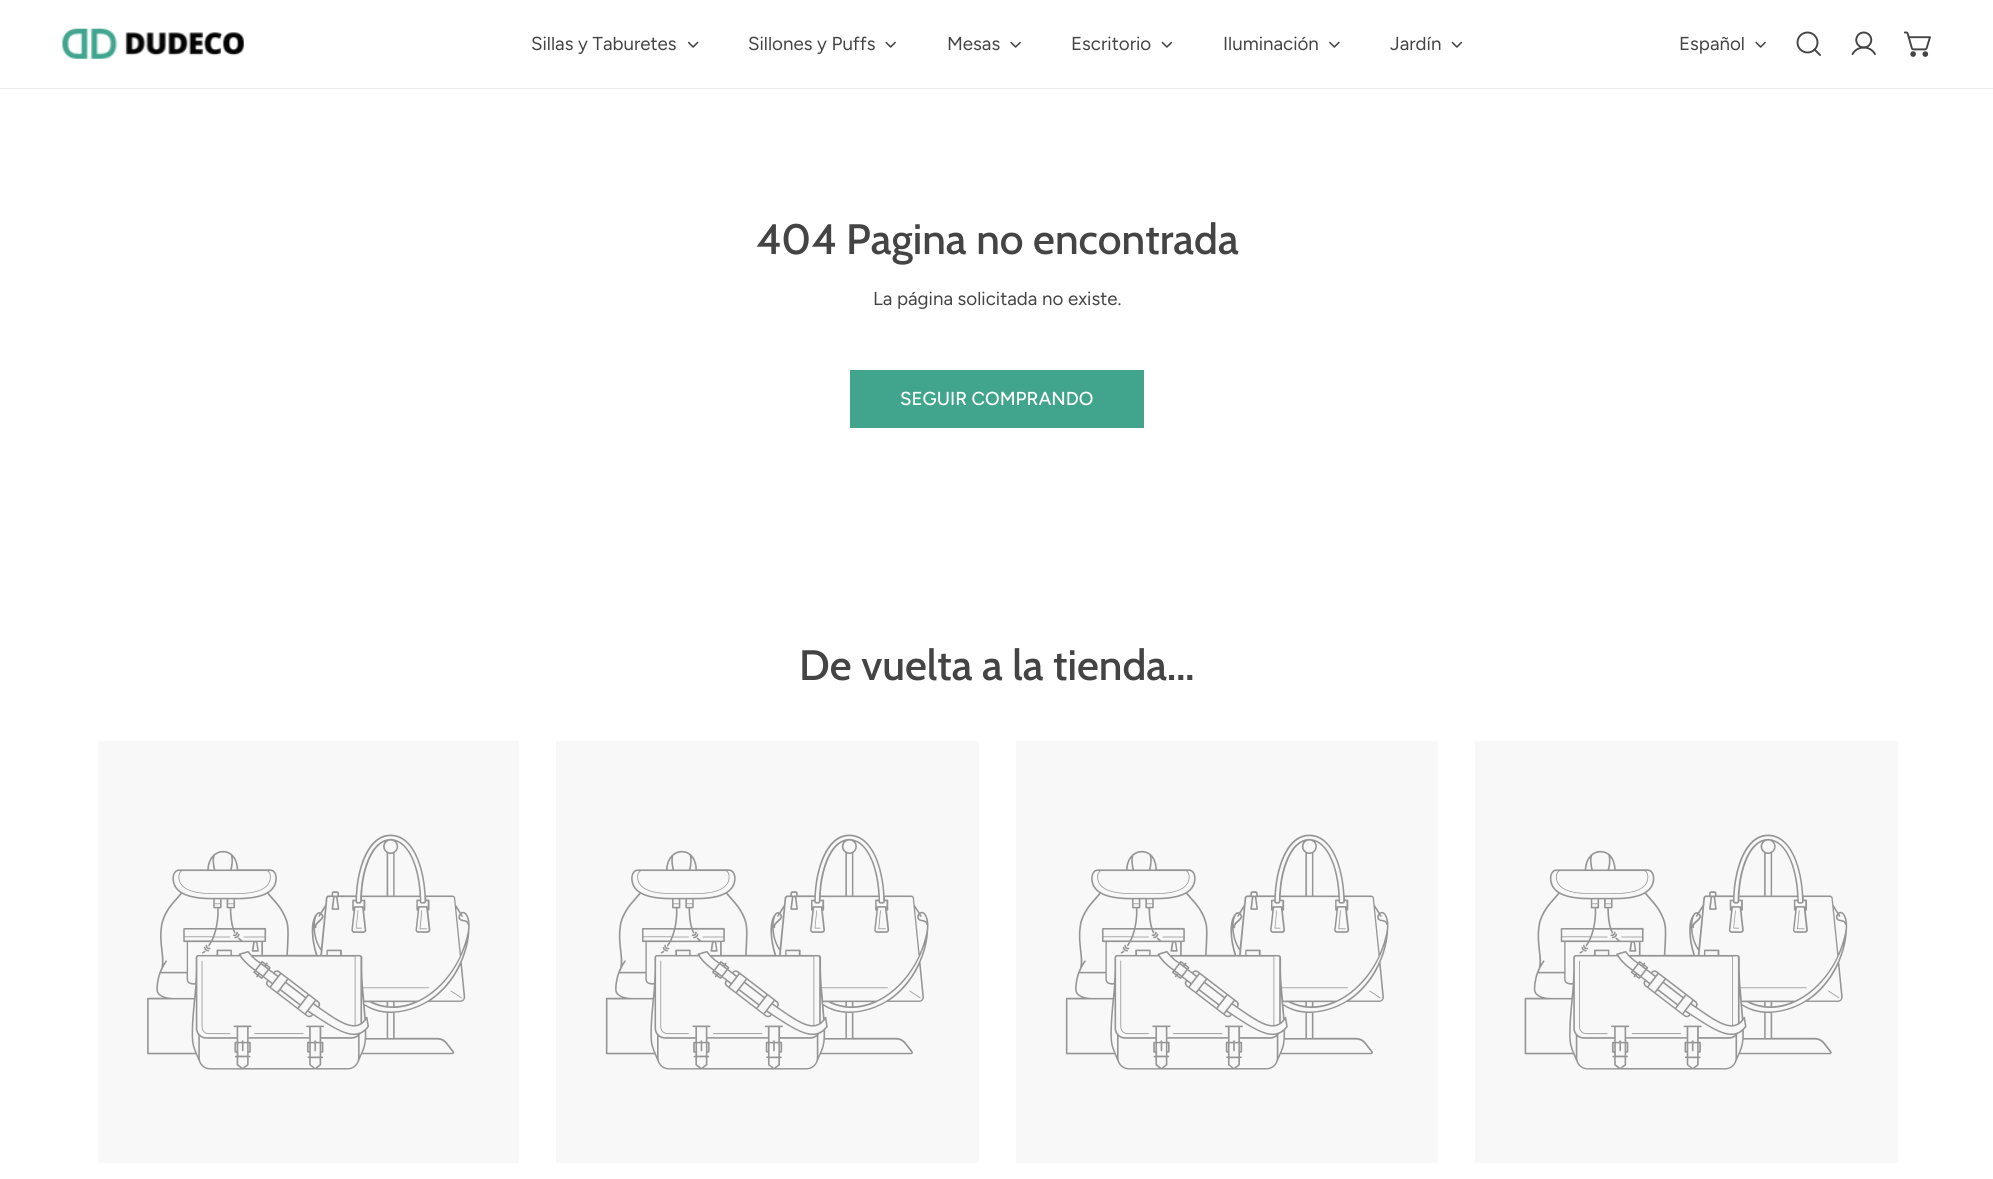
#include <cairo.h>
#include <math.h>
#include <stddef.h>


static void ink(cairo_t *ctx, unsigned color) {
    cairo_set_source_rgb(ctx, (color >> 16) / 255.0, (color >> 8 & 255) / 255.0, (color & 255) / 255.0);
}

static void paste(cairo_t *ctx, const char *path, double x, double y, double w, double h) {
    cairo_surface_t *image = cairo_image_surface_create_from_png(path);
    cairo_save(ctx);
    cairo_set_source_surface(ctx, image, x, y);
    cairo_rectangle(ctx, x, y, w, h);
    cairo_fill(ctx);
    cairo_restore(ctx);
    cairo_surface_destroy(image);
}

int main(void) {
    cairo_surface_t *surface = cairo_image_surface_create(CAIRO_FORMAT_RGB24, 1993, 1179);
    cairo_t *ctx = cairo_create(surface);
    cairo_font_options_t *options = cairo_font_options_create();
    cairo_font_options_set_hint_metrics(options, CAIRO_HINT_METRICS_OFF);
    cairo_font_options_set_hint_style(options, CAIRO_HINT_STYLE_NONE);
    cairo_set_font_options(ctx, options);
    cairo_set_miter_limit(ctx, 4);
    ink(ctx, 0xFFFFFF);
    cairo_paint(ctx);
    ink(ctx, 0xEEEEEE);
    cairo_rectangle(ctx, 0, 88, 1993, 1);
    cairo_fill(ctx);
    paste(ctx, "media/1.png", 62, 28, 182, 32);
    cairo_select_font_face(ctx, "Figtree", CAIRO_FONT_SLANT_NORMAL, CAIRO_FONT_WEIGHT_NORMAL);
    cairo_set_font_size(ctx, 18.75);
    ink(ctx, 0x444444);
    cairo_move_to(ctx, 531, 50);
    cairo_show_text(ctx, "Sillas y Taburetes");
    paste(ctx, "media/2.png", 688, 41, 11, 7);
    cairo_move_to(ctx, 748, 50);
    cairo_show_text(ctx, "Sillones y Puffs");
    paste(ctx, "media/3.png", 885, 41, 11, 7);
    cairo_move_to(ctx, 947, 50);
    cairo_show_text(ctx, "Mesas");
    paste(ctx, "media/3.png", 1010, 41, 11, 7);
    cairo_move_to(ctx, 1071, 50);
    cairo_show_text(ctx, "Escritorio");
    paste(ctx, "media/4.png", 1161, 41, 12, 7);
    cairo_move_to(ctx, 1223, 50);
    cairo_show_text(ctx, "Iluminación");
    paste(ctx, "media/5.png", 1329, 41, 11, 7);
    cairo_move_to(ctx, 1390, 50);
    cairo_show_text(ctx, "Jardín");
    paste(ctx, "media/4.png", 1451, 41, 12, 7);
    cairo_move_to(ctx, 1679, 50);
    cairo_show_text(ctx, "Español");
    paste(ctx, "media/3.png", 1755, 41, 11, 7);
    cairo_arc(ctx, 1807.5, 42.5, 10, 0, 2 * M_PI);
    cairo_set_line_width(ctx, 1.9);
    cairo_stroke(ctx);
    cairo_new_path(ctx);
    cairo_move_to(ctx, 1820, 55);
    cairo_line_to(ctx, 1814.5, 49.5);
    cairo_set_line_cap(ctx, CAIRO_LINE_CAP_ROUND);
    cairo_set_line_join(ctx, CAIRO_LINE_JOIN_ROUND);
    cairo_stroke(ctx);
    paste(ctx, "media/6.png", 1851, 31, 25, 24);
    paste(ctx, "media/7.png", 1904, 31, 27, 26);
    cairo_select_font_face(ctx, "Cabin Medium", CAIRO_FONT_SLANT_NORMAL, CAIRO_FONT_WEIGHT_NORMAL);
    cairo_set_font_size(ctx, 42.5);
    cairo_move_to(ctx, 756, 254);
    cairo_show_text(ctx, "404 Pagina no encontrada");
    cairo_select_font_face(ctx, "Figtree", CAIRO_FONT_SLANT_NORMAL, CAIRO_FONT_WEIGHT_NORMAL);
    cairo_set_font_size(ctx, 18.75);
    cairo_move_to(ctx, 873, 305);
    cairo_show_text(ctx, "La página solicitada no existe.");
    ink(ctx, 0x41A58D);
    cairo_rectangle(ctx, 850, 370, 294, 58);
    cairo_fill(ctx);
    cairo_select_font_face(ctx, "Figtree Medium", CAIRO_FONT_SLANT_NORMAL, CAIRO_FONT_WEIGHT_NORMAL);
    ink(ctx, 0xFFFFFF);
    cairo_move_to(ctx, 900, 405);
    cairo_show_text(ctx, "SEGUIR COMPRANDO");
    cairo_select_font_face(ctx, "Cabin Medium", CAIRO_FONT_SLANT_NORMAL, CAIRO_FONT_WEIGHT_NORMAL);
    cairo_set_font_size(ctx, 42.5);
    ink(ctx, 0x444444);
    cairo_move_to(ctx, 799, 680);
    cairo_show_text(ctx, "De vuelta a la tienda...");
    ink(ctx, 0xF8F8F8);
    cairo_rectangle(ctx, 98, 741, 421, 422);
    cairo_fill(ctx);
    paste(ctx, "media/8.png", 147, 834, 323, 236);
    cairo_rectangle(ctx, 556, 741, 423, 422);
    cairo_fill(ctx);
    paste(ctx, "media/9.png", 605, 834, 324, 236);
    cairo_rectangle(ctx, 1016, 741, 422, 422);
    cairo_fill(ctx);
    paste(ctx, "media/9.png", 1065, 834, 324, 236);
    cairo_rectangle(ctx, 1475, 741, 423, 422);
    cairo_fill(ctx);
    paste(ctx, "media/10.png", 1524, 834, 324, 236);
    cairo_surface_write_to_png(surface, "image.png");
    cairo_font_options_destroy(options);
    cairo_destroy(ctx);
    cairo_surface_destroy(surface);
    return 0;
}
